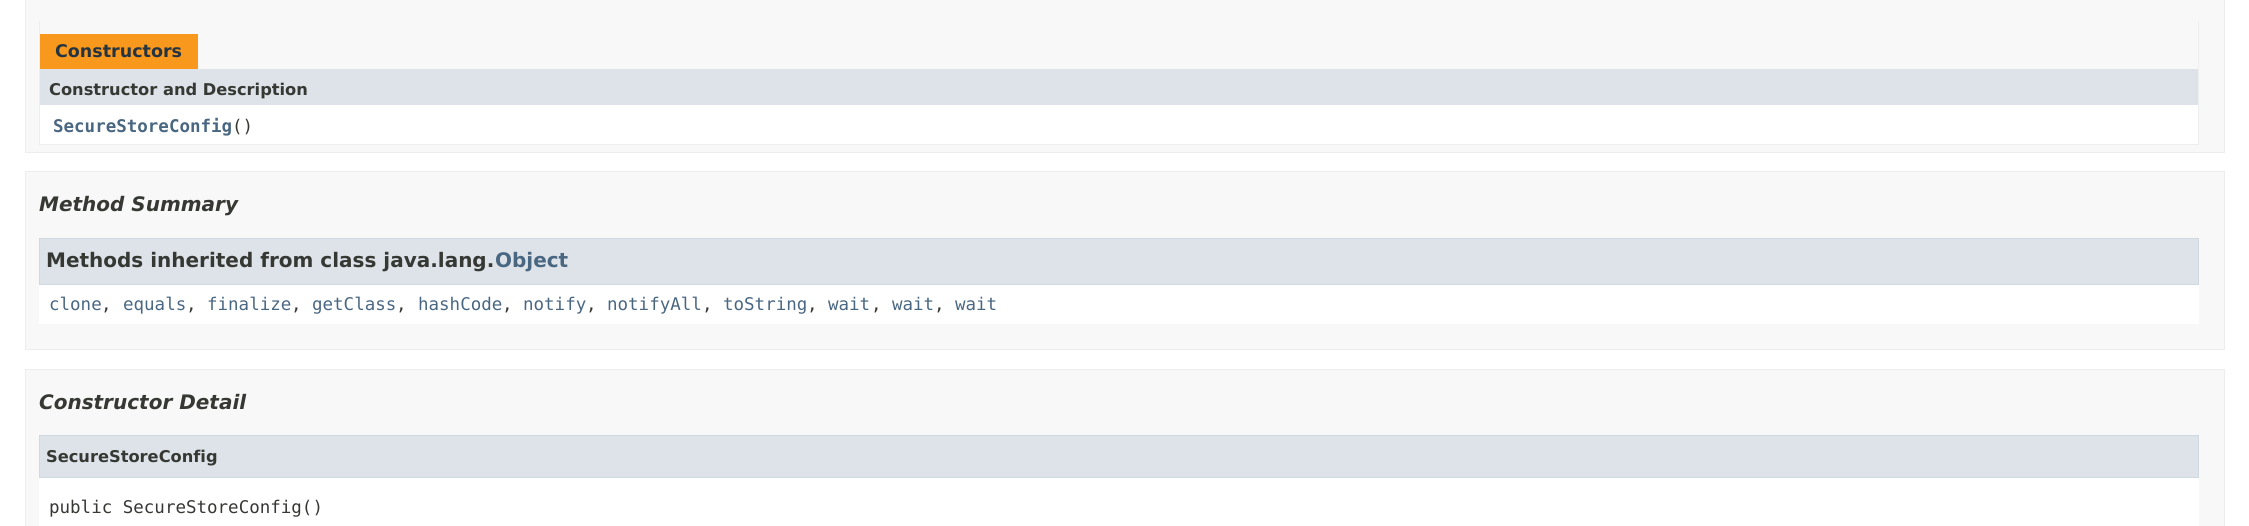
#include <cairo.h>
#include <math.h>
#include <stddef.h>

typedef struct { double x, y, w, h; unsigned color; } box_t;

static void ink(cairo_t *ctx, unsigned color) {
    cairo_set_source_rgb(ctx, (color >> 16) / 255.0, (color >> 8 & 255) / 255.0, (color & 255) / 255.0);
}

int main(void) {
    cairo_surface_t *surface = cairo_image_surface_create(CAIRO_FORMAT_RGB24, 2249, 526);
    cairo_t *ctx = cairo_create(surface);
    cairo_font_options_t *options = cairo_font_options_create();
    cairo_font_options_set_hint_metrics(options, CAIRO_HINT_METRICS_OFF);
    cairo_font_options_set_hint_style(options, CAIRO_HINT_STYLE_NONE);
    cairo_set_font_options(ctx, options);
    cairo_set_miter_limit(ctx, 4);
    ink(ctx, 0xFFFFFF);
    cairo_paint(ctx);
    ink(ctx, 0xF8F8F8);
    cairo_rectangle(ctx, 25.5, -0.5, 2199, 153);
    cairo_fill_preserve(ctx);
    ink(ctx, 0xEDEDED);
    cairo_set_line_width(ctx, 1);
    cairo_stroke(ctx);
    {
        static const box_t items[] = {
            {2198, 21, 1, 124, 0xEEEEEE},
            {39, 144, 2160, 1, 0xEEEEEE},
            {39, 21, 1, 124, 0xEEEEEE},
            {40, 34, 158, 35, 0xF8981D},
        };
        for (size_t i = 0; i < sizeof items / sizeof *items; i++) {
            ink(ctx, items[i].color);
            cairo_rectangle(ctx, items[i].x, items[i].y, items[i].w, items[i].h);
            cairo_fill(ctx);
        }
    }
    cairo_select_font_face(ctx, "DejaVu Sans", CAIRO_FONT_SLANT_NORMAL, CAIRO_FONT_WEIGHT_BOLD);
    cairo_set_font_size(ctx, 17.5);
    ink(ctx, 0x253441);
    cairo_move_to(ctx, 55, 57);
    cairo_show_text(ctx, "Constructors");
    ink(ctx, 0xDEE3E9);
    cairo_rectangle(ctx, 40, 69, 2158, 36);
    cairo_fill(ctx);
    cairo_set_font_size(ctx, 16.25);
    ink(ctx, 0x353833);
    cairo_move_to(ctx, 49, 95);
    cairo_show_text(ctx, "Constructor and Description");
    ink(ctx, 0xFFFFFF);
    cairo_rectangle(ctx, 40, 105, 2158, 39);
    cairo_fill(ctx);
    cairo_select_font_face(ctx, "DejaVu Sans Mono", CAIRO_FONT_SLANT_NORMAL, CAIRO_FONT_WEIGHT_BOLD);
    cairo_set_font_size(ctx, 17.5);
    ink(ctx, 0x4A6782);
    cairo_move_to(ctx, 53, 132);
    cairo_show_text(ctx, "SecureStoreConfig");
    cairo_select_font_face(ctx, "DejaVu Sans Mono", CAIRO_FONT_SLANT_NORMAL, CAIRO_FONT_WEIGHT_NORMAL);
    ink(ctx, 0x353833);
    cairo_move_to(ctx, 232, 132);
    cairo_show_text(ctx, "()");
    ink(ctx, 0xF8F8F8);
    cairo_rectangle(ctx, 25.5, 171.5, 2199, 178);
    cairo_fill_preserve(ctx);
    ink(ctx, 0xEDEDED);
    cairo_stroke(ctx);
    cairo_select_font_face(ctx, "DejaVu Sans", CAIRO_FONT_SLANT_ITALIC, CAIRO_FONT_WEIGHT_BOLD);
    cairo_set_font_size(ctx, 20);
    ink(ctx, 0x353833);
    cairo_move_to(ctx, 39, 211);
    cairo_show_text(ctx, "Method Summary");
    ink(ctx, 0xFFFFFF);
    cairo_rectangle(ctx, 39, 285, 2160, 39);
    cairo_fill(ctx);
    ink(ctx, 0xDEE3E9);
    cairo_rectangle(ctx, 39.5, 238.5, 2159, 46);
    cairo_fill_preserve(ctx);
    ink(ctx, 0xD0D9E0);
    cairo_stroke(ctx);
    cairo_select_font_face(ctx, "DejaVu Sans", CAIRO_FONT_SLANT_NORMAL, CAIRO_FONT_WEIGHT_BOLD);
    ink(ctx, 0x353833);
    cairo_move_to(ctx, 46, 267);
    cairo_show_text(ctx, "Methods inherited from class java.lang.");
    ink(ctx, 0x4A6782);
    cairo_move_to(ctx, 495, 267);
    cairo_show_text(ctx, "Object");
    cairo_select_font_face(ctx, "DejaVu Sans Mono", CAIRO_FONT_SLANT_NORMAL, CAIRO_FONT_WEIGHT_NORMAL);
    cairo_set_font_size(ctx, 17.5);
    cairo_move_to(ctx, 49, 310);
    cairo_show_text(ctx, "clone");
    ink(ctx, 0x353833);
    cairo_move_to(ctx, 101, 310);
    cairo_show_text(ctx, ",");
    ink(ctx, 0x4A6782);
    cairo_move_to(ctx, 123, 310);
    cairo_show_text(ctx, "equals");
    ink(ctx, 0x353833);
    cairo_move_to(ctx, 186, 310);
    cairo_show_text(ctx, ",");
    ink(ctx, 0x4A6782);
    cairo_move_to(ctx, 207, 310);
    cairo_show_text(ctx, "finalize");
    ink(ctx, 0x353833);
    cairo_move_to(ctx, 291, 310);
    cairo_show_text(ctx, ",");
    ink(ctx, 0x4A6782);
    cairo_move_to(ctx, 312, 310);
    cairo_show_text(ctx, "getClass");
    ink(ctx, 0x353833);
    cairo_move_to(ctx, 396, 310);
    cairo_show_text(ctx, ",");
    ink(ctx, 0x4A6782);
    cairo_move_to(ctx, 418, 310);
    cairo_show_text(ctx, "hashCode");
    ink(ctx, 0x353833);
    cairo_move_to(ctx, 502, 310);
    cairo_show_text(ctx, ",");
    ink(ctx, 0x4A6782);
    cairo_move_to(ctx, 523, 310);
    cairo_show_text(ctx, "notify");
    ink(ctx, 0x353833);
    cairo_move_to(ctx, 586, 310);
    cairo_show_text(ctx, ",");
    ink(ctx, 0x4A6782);
    cairo_move_to(ctx, 607, 310);
    cairo_show_text(ctx, "notifyAll");
    ink(ctx, 0x353833);
    cairo_move_to(ctx, 702, 310);
    cairo_show_text(ctx, ",");
    ink(ctx, 0x4A6782);
    cairo_move_to(ctx, 723, 310);
    cairo_show_text(ctx, "toString");
    ink(ctx, 0x353833);
    cairo_move_to(ctx, 807, 310);
    cairo_show_text(ctx, ",");
    ink(ctx, 0x4A6782);
    cairo_move_to(ctx, 828, 310);
    cairo_show_text(ctx, "wait");
    ink(ctx, 0x353833);
    cairo_move_to(ctx, 871, 310);
    cairo_show_text(ctx, ",");
    ink(ctx, 0x4A6782);
    cairo_move_to(ctx, 892, 310);
    cairo_show_text(ctx, "wait");
    ink(ctx, 0x353833);
    cairo_move_to(ctx, 934, 310);
    cairo_show_text(ctx, ",");
    ink(ctx, 0x4A6782);
    cairo_move_to(ctx, 955, 310);
    cairo_show_text(ctx, "wait");
    ink(ctx, 0xF8F8F8);
    cairo_rectangle(ctx, 25.5, 369.5, 2199, 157);
    cairo_fill_preserve(ctx);
    ink(ctx, 0xEDEDED);
    cairo_stroke(ctx);
    cairo_select_font_face(ctx, "DejaVu Sans", CAIRO_FONT_SLANT_ITALIC, CAIRO_FONT_WEIGHT_BOLD);
    cairo_set_font_size(ctx, 20);
    ink(ctx, 0x353833);
    cairo_move_to(ctx, 39, 409);
    cairo_show_text(ctx, "Constructor Detail");
    ink(ctx, 0xFFFFFF);
    cairo_rectangle(ctx, 39, 478, 2160, 48);
    cairo_fill(ctx);
    ink(ctx, 0xDEE3E9);
    cairo_rectangle(ctx, 39.5, 435.5, 2159, 42);
    cairo_fill_preserve(ctx);
    ink(ctx, 0xD0D9E0);
    cairo_stroke(ctx);
    cairo_select_font_face(ctx, "DejaVu Sans", CAIRO_FONT_SLANT_NORMAL, CAIRO_FONT_WEIGHT_BOLD);
    cairo_set_font_size(ctx, 16.25);
    ink(ctx, 0x353833);
    cairo_move_to(ctx, 46, 462);
    cairo_show_text(ctx, "SecureStoreConfig");
    cairo_select_font_face(ctx, "DejaVu Sans Mono", CAIRO_FONT_SLANT_NORMAL, CAIRO_FONT_WEIGHT_NORMAL);
    cairo_set_font_size(ctx, 17.5);
    cairo_move_to(ctx, 49, 513);
    cairo_show_text(ctx, "public SecureStoreConfig()");
    cairo_surface_write_to_png(surface, "image.png");
    cairo_font_options_destroy(options);
    cairo_destroy(ctx);
    cairo_surface_destroy(surface);
    return 0;
}
